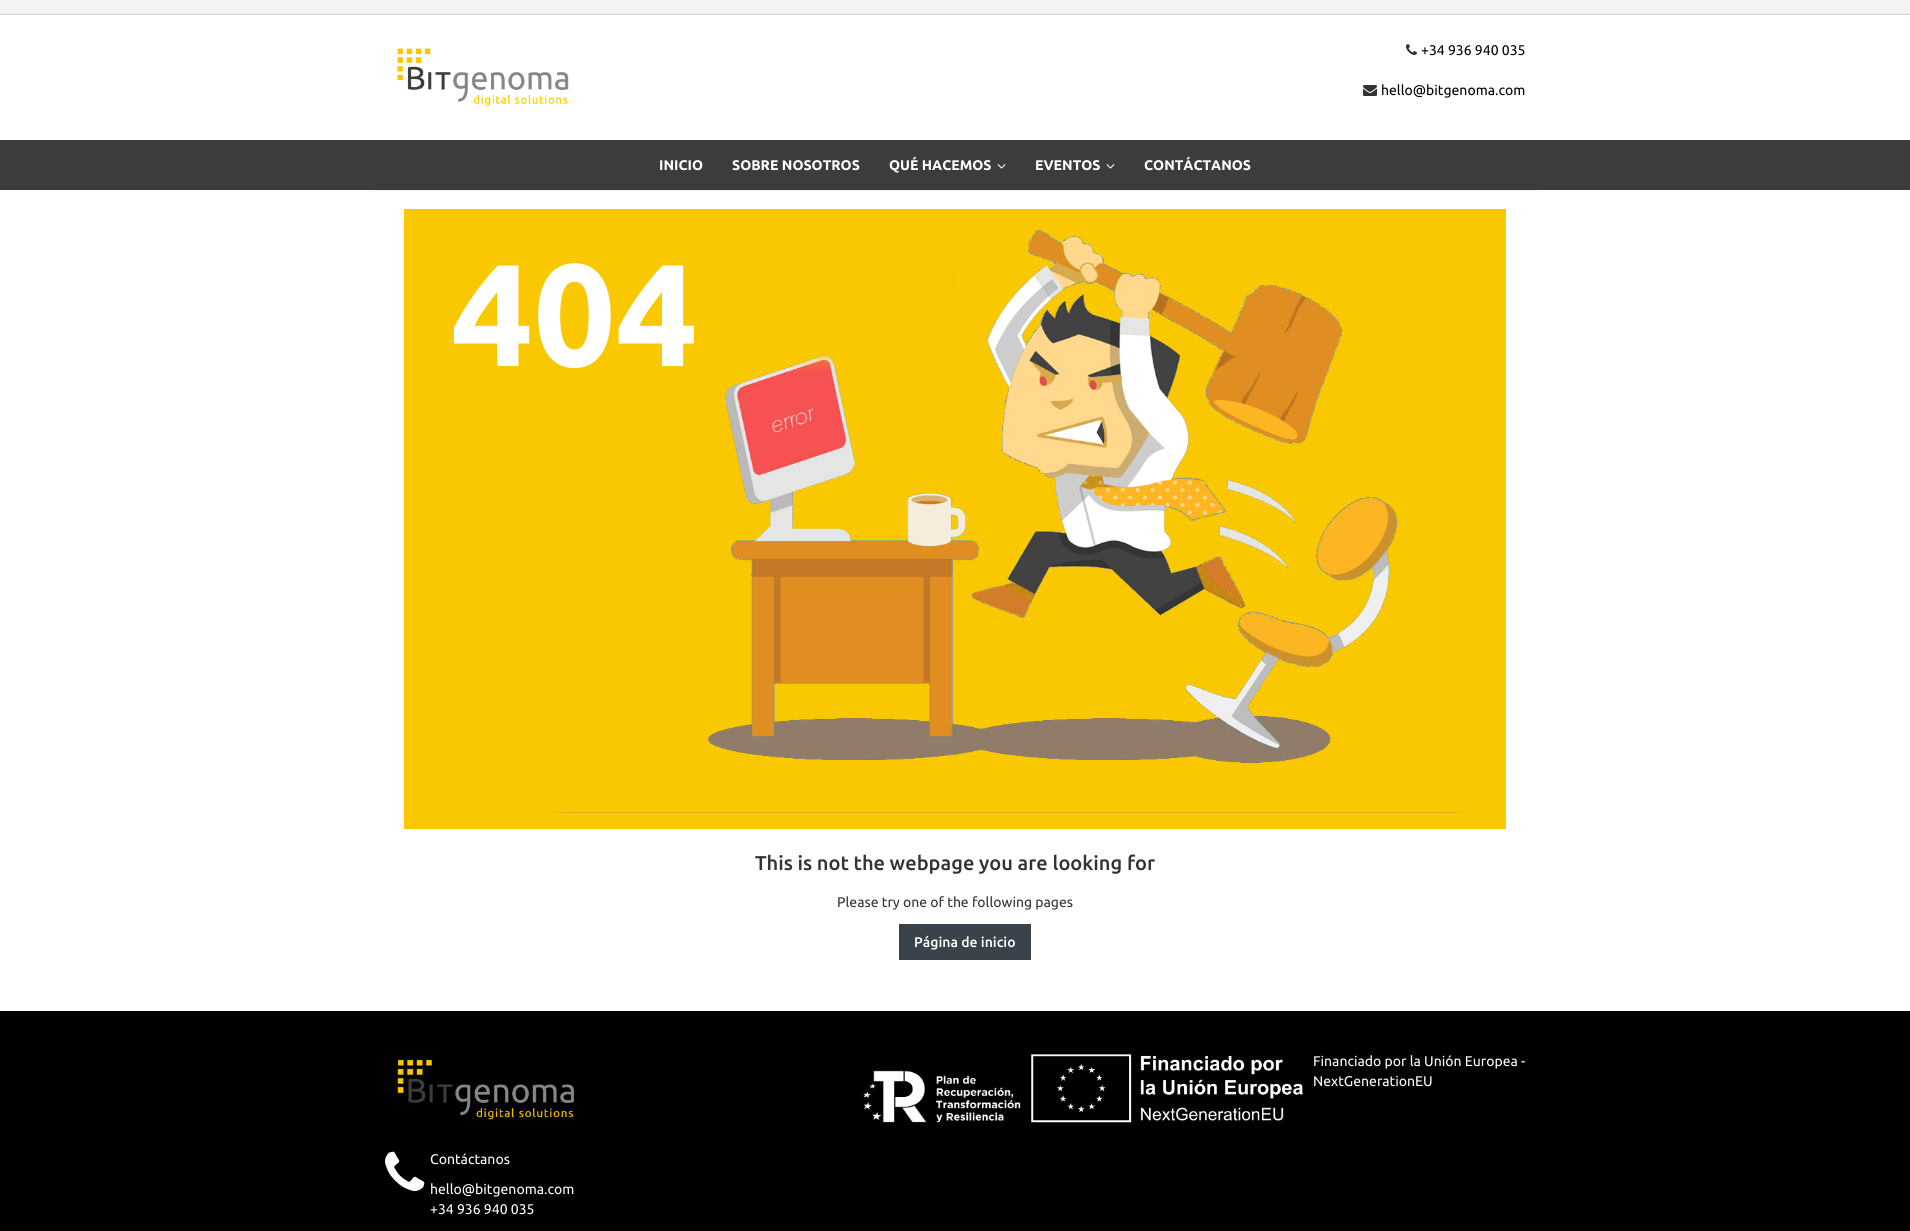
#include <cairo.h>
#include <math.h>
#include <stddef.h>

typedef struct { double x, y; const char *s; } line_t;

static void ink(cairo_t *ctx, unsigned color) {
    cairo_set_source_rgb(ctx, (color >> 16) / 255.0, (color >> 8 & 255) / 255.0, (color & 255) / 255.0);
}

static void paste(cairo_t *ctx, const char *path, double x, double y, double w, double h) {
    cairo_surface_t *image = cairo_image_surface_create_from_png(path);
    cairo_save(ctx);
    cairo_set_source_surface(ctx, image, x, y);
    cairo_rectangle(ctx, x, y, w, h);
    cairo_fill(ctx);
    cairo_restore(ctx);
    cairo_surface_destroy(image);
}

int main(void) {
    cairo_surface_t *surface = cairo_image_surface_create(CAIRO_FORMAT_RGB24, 1910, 1231);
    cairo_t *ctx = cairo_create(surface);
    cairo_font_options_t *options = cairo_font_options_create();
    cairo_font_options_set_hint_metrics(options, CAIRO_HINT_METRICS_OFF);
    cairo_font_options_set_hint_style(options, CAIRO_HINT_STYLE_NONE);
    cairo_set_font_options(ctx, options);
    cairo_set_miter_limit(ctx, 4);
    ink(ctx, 0xFFFFFF);
    cairo_paint(ctx);
    ink(ctx, 0xF4F4F4);
    cairo_rectangle(ctx, 0, 0, 1910, 14);
    cairo_fill(ctx);
    ink(ctx, 0xD0D0D0);
    cairo_rectangle(ctx, 0, 14, 1910, 1);
    cairo_fill(ctx);
    paste(ctx, "media/1.png", 397, 48, 172, 58);
    paste(ctx, "media/2.png", 1406, 44, 11, 11);
    cairo_select_font_face(ctx, "Ubuntu", CAIRO_FONT_SLANT_NORMAL, CAIRO_FONT_WEIGHT_NORMAL);
    cairo_set_font_size(ctx, 14);
    ink(ctx, 0x000000);
    cairo_move_to(ctx, 1421, 55);
    cairo_show_text(ctx, "+34 936 940 035");
    paste(ctx, "media/3.png", 1363, 85, 14, 11);
    cairo_move_to(ctx, 1381, 95);
    cairo_show_text(ctx, "hello@bitgenoma.com");
    ink(ctx, 0x3C3C3B);
    cairo_rectangle(ctx, 0, 140, 1910, 50);
    cairo_fill(ctx);
    cairo_select_font_face(ctx, "Ubuntu", CAIRO_FONT_SLANT_NORMAL, CAIRO_FONT_WEIGHT_BOLD);
    ink(ctx, 0xFFFFFF);
    {
        static const line_t items[] = {
            {659, 170, "INICIO"},
            {732, 170, "SOBRE NOSOTROS"},
            {889, 170, "QUÉ HACEMOS"},
        };
        for (size_t i = 0; i < sizeof items / sizeof *items; i++) {
            cairo_move_to(ctx, items[i].x, items[i].y);
            cairo_show_text(ctx, items[i].s);
        }
    }
    paste(ctx, "media/4.png", 997, 164, 9, 5);
    cairo_move_to(ctx, 1035, 170);
    cairo_show_text(ctx, "EVENTOS");
    paste(ctx, "media/4.png", 1106, 164, 9, 5);
    cairo_move_to(ctx, 1144, 170);
    cairo_show_text(ctx, "CONTÁCTANOS");
    ink(ctx, 0xF2F2F2);
    cairo_new_path(ctx);
    cairo_move_to(ctx, 374, 191);
    cairo_line_to(ctx, 1536, 191);
    cairo_curve_to(ctx, 1538, 191, 1540, 193, 1540, 195);
    cairo_curve_to(ctx, 1540, 192, 1539, 190, 1536, 190);
    cairo_line_to(ctx, 374, 190);
    cairo_curve_to(ctx, 371, 190, 370, 192, 370, 195);
    cairo_curve_to(ctx, 370, 193, 372, 191, 374, 191);
    cairo_close_path(ctx);
    cairo_fill(ctx);
    ink(ctx, 0xFAC800);
    cairo_rectangle(ctx, 404, 209, 1102, 620);
    cairo_fill(ctx);
    paste(ctx, "media/5.png", 546, 229, 926, 584);
    cairo_set_font_size(ctx, 145);
    ink(ctx, 0xFFFFFF);
    cairo_move_to(ctx, 451, 366);
    cairo_show_text(ctx, "404");
    cairo_select_font_face(ctx, "Ubuntu Medium", CAIRO_FONT_SLANT_NORMAL, CAIRO_FONT_WEIGHT_NORMAL);
    cairo_set_font_size(ctx, 20);
    ink(ctx, 0x333333);
    cairo_move_to(ctx, 755, 870);
    cairo_show_text(ctx, "This is not the webpage you are looking for");
    cairo_select_font_face(ctx, "Ubuntu", CAIRO_FONT_SLANT_NORMAL, CAIRO_FONT_WEIGHT_NORMAL);
    cairo_set_font_size(ctx, 14);
    cairo_move_to(ctx, 837, 907);
    cairo_show_text(ctx, "Please try one of the following pages");
    ink(ctx, 0x3A424C);
    cairo_rectangle(ctx, 899, 924, 132, 36);
    cairo_fill(ctx);
    cairo_select_font_face(ctx, "Ubuntu Medium", CAIRO_FONT_SLANT_NORMAL, CAIRO_FONT_WEIGHT_NORMAL);
    ink(ctx, 0xFFFFFF);
    cairo_move_to(ctx, 914, 947);
    cairo_show_text(ctx, "Página de inicio");
    ink(ctx, 0x000000);
    cairo_rectangle(ctx, 0, 1011, 1910, 220);
    cairo_fill(ctx);
    paste(ctx, "media/6.png", 863, 1070, 158, 53);
    paste(ctx, "media/7.png", 1031, 1054, 273, 69);
    cairo_select_font_face(ctx, "Ubuntu", CAIRO_FONT_SLANT_NORMAL, CAIRO_FONT_WEIGHT_NORMAL);
    ink(ctx, 0xFFFFFF);
    cairo_move_to(ctx, 1313, 1066);
    cairo_show_text(ctx, "Financiado por la Unión Europea -");
    cairo_move_to(ctx, 1313, 1086);
    cairo_show_text(ctx, "NextGenerationEU");
    paste(ctx, "media/8.png", 397, 1059, 178, 61);
    paste(ctx, "media/9.png", 385, 1151, 40, 40);
    {
        static const line_t items[] = {
            {430, 1164, "Contáctanos"},
            {430, 1194, "hello@bitgenoma.com"},
            {430, 1214, "+34 936 940 035"},
        };
        for (size_t i = 0; i < sizeof items / sizeof *items; i++) {
            cairo_move_to(ctx, items[i].x, items[i].y);
            cairo_show_text(ctx, items[i].s);
        }
    }
    cairo_surface_write_to_png(surface, "image.png");
    cairo_font_options_destroy(options);
    cairo_destroy(ctx);
    cairo_surface_destroy(surface);
    return 0;
}
